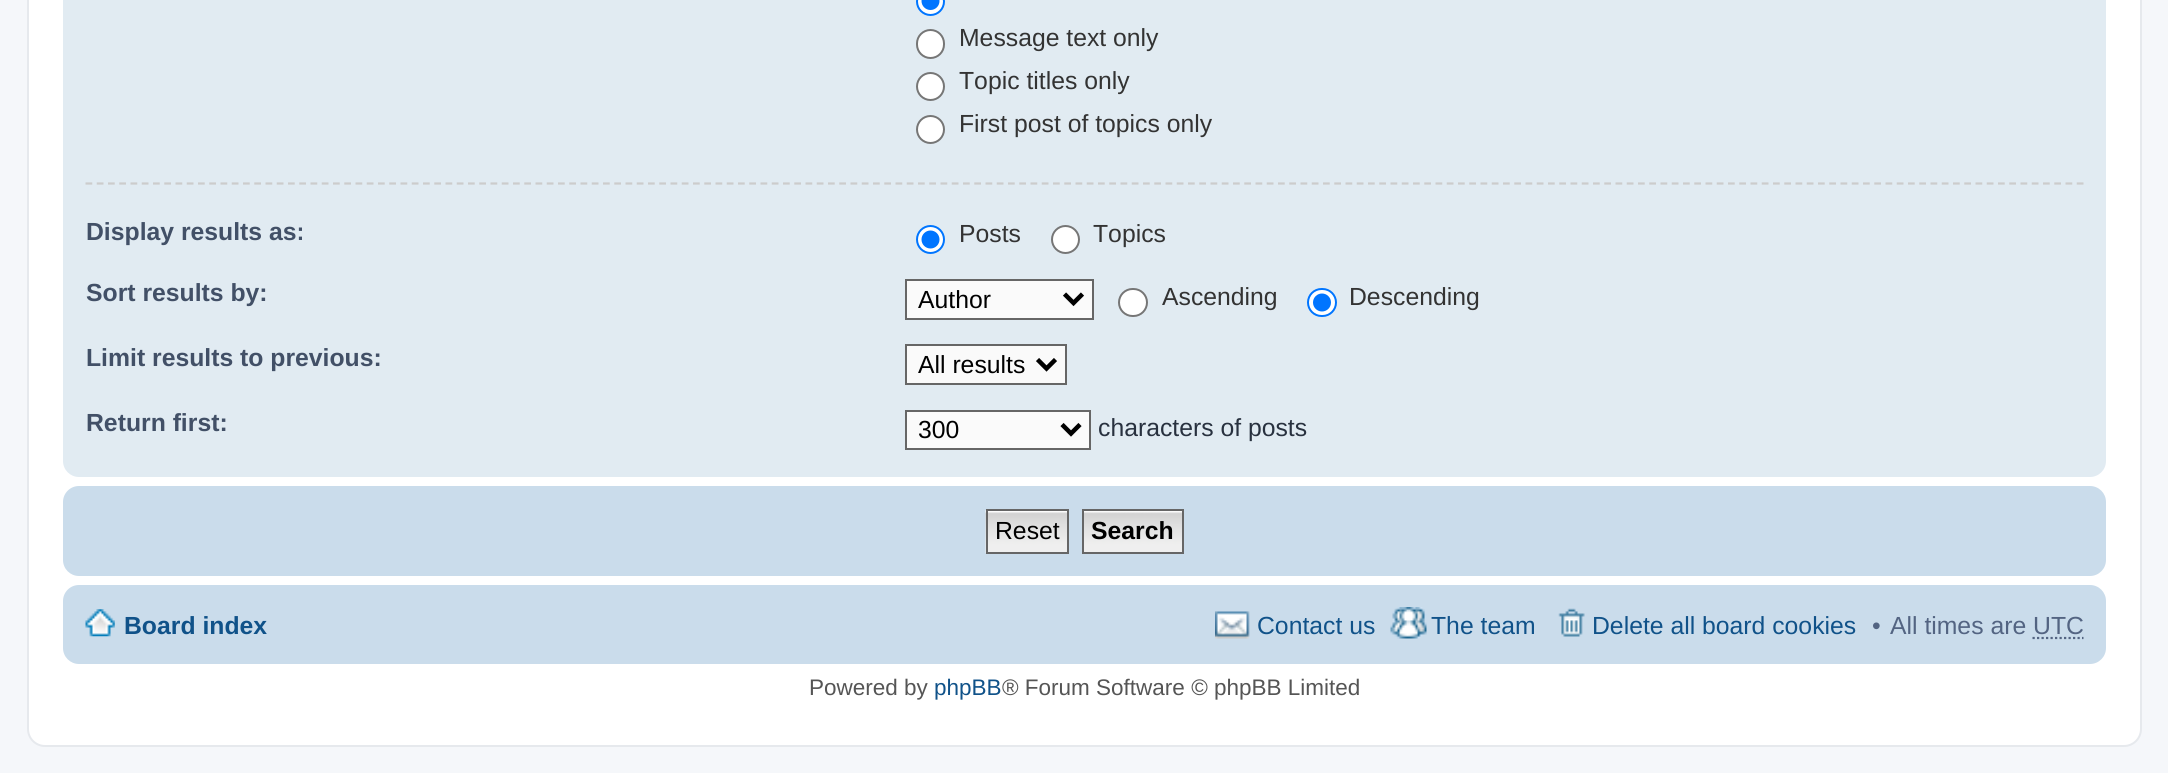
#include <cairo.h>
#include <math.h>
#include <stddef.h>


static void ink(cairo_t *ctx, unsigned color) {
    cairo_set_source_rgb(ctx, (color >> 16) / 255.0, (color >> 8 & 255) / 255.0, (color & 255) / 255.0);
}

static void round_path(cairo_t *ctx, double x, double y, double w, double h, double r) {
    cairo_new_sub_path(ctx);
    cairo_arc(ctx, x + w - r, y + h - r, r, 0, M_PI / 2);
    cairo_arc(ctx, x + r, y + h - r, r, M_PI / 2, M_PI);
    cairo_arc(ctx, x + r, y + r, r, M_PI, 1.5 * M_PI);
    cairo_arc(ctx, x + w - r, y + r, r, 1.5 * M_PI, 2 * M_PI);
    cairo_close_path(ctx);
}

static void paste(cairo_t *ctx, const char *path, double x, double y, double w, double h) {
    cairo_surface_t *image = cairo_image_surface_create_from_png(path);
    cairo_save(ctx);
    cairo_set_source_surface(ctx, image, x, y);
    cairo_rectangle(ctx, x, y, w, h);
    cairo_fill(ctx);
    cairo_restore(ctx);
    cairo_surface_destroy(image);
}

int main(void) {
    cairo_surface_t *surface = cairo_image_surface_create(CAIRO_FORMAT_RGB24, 2168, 773);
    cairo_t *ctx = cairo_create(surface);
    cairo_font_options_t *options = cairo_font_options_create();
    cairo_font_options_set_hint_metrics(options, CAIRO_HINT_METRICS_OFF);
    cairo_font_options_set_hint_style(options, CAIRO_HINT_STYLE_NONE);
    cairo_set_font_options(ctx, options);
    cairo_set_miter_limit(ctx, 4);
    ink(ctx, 0xF5F7FA);
    cairo_paint(ctx);
    ink(ctx, 0xFFFFFF);
    round_path(ctx, 28, -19, 2113, 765, 17);
    cairo_fill_preserve(ctx);
    ink(ctx, 0xE6E9ED);
    cairo_stroke(ctx);
    ink(ctx, 0xE1EBF2);
    round_path(ctx, 63, -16, 2043, 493, 16);
    cairo_fill(ctx);
    ink(ctx, 0xFFFFFF);
    cairo_arc(ctx, 930.5, 1.5, 13.5, 0, 2 * M_PI);
    cairo_fill_preserve(ctx);
    ink(ctx, 0x0075FF);
    cairo_stroke(ctx);
    cairo_arc(ctx, 930.5, 1, 9, 0, 2 * M_PI);
    cairo_fill(ctx);
    ink(ctx, 0xFFFFFF);
    round_path(ctx, 917, 30, 27, 28, 13.5);
    cairo_fill_preserve(ctx);
    ink(ctx, 0x767676);
    cairo_stroke(ctx);
    cairo_select_font_face(ctx, "Liberation Sans", CAIRO_FONT_SLANT_NORMAL, CAIRO_FONT_WEIGHT_NORMAL);
    cairo_set_font_size(ctx, 24.75);
    ink(ctx, 0x333333);
    cairo_move_to(ctx, 959, 46);
    cairo_show_text(ctx, "Message text only");
    ink(ctx, 0xFFFFFF);
    cairo_new_path(ctx);
    cairo_arc(ctx, 930.5, 86.5, 13.5, 0, 2 * M_PI);
    cairo_fill_preserve(ctx);
    ink(ctx, 0x767676);
    cairo_stroke(ctx);
    ink(ctx, 0x333333);
    cairo_move_to(ctx, 959, 89);
    cairo_show_text(ctx, "Topic titles only");
    ink(ctx, 0xFFFFFF);
    cairo_new_path(ctx);
    cairo_arc(ctx, 930.5, 129.5, 13.5, 0, 2 * M_PI);
    cairo_fill_preserve(ctx);
    ink(ctx, 0x767676);
    cairo_stroke(ctx);
    ink(ctx, 0x333333);
    cairo_move_to(ctx, 959, 132);
    cairo_show_text(ctx, "First post of topics only");
    cairo_new_path(ctx);
    cairo_move_to(ctx, 85.5, 183.5);
    cairo_line_to(ctx, 2083.5, 183.5);
    ink(ctx, 0xCCCCCC);
    cairo_set_line_width(ctx, 2.2);
    cairo_set_dash(ctx, (double[]){6.75, 4.5}, 2, 0);
    cairo_stroke(ctx);
    cairo_select_font_face(ctx, "Liberation Sans", CAIRO_FONT_SLANT_NORMAL, CAIRO_FONT_WEIGHT_BOLD);
    ink(ctx, 0x425067);
    cairo_move_to(ctx, 86, 240);
    cairo_show_text(ctx, "Display results as:");
    ink(ctx, 0xFFFFFF);
    cairo_new_path(ctx);
    cairo_arc(ctx, 930.5, 239.5, 13.5, 0, 2 * M_PI);
    cairo_fill_preserve(ctx);
    ink(ctx, 0x0075FF);
    cairo_set_line_width(ctx, 2);
    cairo_set_dash(ctx, NULL, 0, 0);
    cairo_stroke(ctx);
    cairo_arc(ctx, 930.5, 239.5, 9, 0, 2 * M_PI);
    cairo_fill(ctx);
    cairo_select_font_face(ctx, "Liberation Sans", CAIRO_FONT_SLANT_NORMAL, CAIRO_FONT_WEIGHT_NORMAL);
    ink(ctx, 0x333333);
    cairo_move_to(ctx, 959, 242);
    cairo_show_text(ctx, "Posts");
    ink(ctx, 0xFFFFFF);
    cairo_new_path(ctx);
    cairo_arc(ctx, 1065.5, 239.5, 13.5, 0, 2 * M_PI);
    cairo_fill_preserve(ctx);
    ink(ctx, 0x767676);
    cairo_stroke(ctx);
    ink(ctx, 0x333333);
    cairo_move_to(ctx, 1093, 242);
    cairo_show_text(ctx, "Topics");
    cairo_select_font_face(ctx, "Liberation Sans", CAIRO_FONT_SLANT_NORMAL, CAIRO_FONT_WEIGHT_BOLD);
    ink(ctx, 0x425067);
    cairo_move_to(ctx, 86, 301);
    cairo_show_text(ctx, "Sort results by:");
    ink(ctx, 0xFAFAFA);
    cairo_rectangle(ctx, 906, 280, 187, 39);
    cairo_fill_preserve(ctx);
    ink(ctx, 0x666666);
    cairo_stroke(ctx);
    cairo_new_path(ctx);
    cairo_move_to(ctx, 1064.5, 294);
    cairo_line_to(ctx, 1073.5, 303);
    cairo_line_to(ctx, 1082.5, 294);
    ink(ctx, 0x000000);
    cairo_set_line_width(ctx, 4.5);
    cairo_stroke(ctx);
    cairo_select_font_face(ctx, "Liberation Sans", CAIRO_FONT_SLANT_NORMAL, CAIRO_FONT_WEIGHT_NORMAL);
    cairo_move_to(ctx, 918, 308);
    cairo_show_text(ctx, "Author");
    ink(ctx, 0xFFFFFF);
    round_path(ctx, 1119, 289, 28, 27, 13.5);
    cairo_fill_preserve(ctx);
    ink(ctx, 0x767676);
    cairo_set_line_width(ctx, 2);
    cairo_stroke(ctx);
    ink(ctx, 0x333333);
    cairo_move_to(ctx, 1162, 305);
    cairo_show_text(ctx, "Ascending");
    ink(ctx, 0xFFFFFF);
    round_path(ctx, 1308, 289, 28, 27, 13.5);
    cairo_fill_preserve(ctx);
    ink(ctx, 0x0075FF);
    cairo_stroke(ctx);
    cairo_arc(ctx, 1322, 302.5, 9, 0, 2 * M_PI);
    cairo_fill(ctx);
    ink(ctx, 0x333333);
    cairo_move_to(ctx, 1349, 305);
    cairo_show_text(ctx, "Descending");
    cairo_select_font_face(ctx, "Liberation Sans", CAIRO_FONT_SLANT_NORMAL, CAIRO_FONT_WEIGHT_BOLD);
    ink(ctx, 0x425067);
    cairo_move_to(ctx, 86, 366);
    cairo_show_text(ctx, "Limit results to previous:");
    ink(ctx, 0xFAFAFA);
    cairo_rectangle(ctx, 906, 345, 160, 39);
    cairo_fill_preserve(ctx);
    ink(ctx, 0x666666);
    cairo_stroke(ctx);
    cairo_new_path(ctx);
    cairo_move_to(ctx, 1037.5, 359.5);
    cairo_line_to(ctx, 1046.5, 368.5);
    cairo_line_to(ctx, 1055.5, 359.5);
    ink(ctx, 0x000000);
    cairo_set_line_width(ctx, 4.5);
    cairo_stroke(ctx);
    cairo_select_font_face(ctx, "Liberation Sans", CAIRO_FONT_SLANT_NORMAL, CAIRO_FONT_WEIGHT_NORMAL);
    cairo_move_to(ctx, 918, 373);
    cairo_show_text(ctx, "All results");
    cairo_select_font_face(ctx, "Liberation Sans", CAIRO_FONT_SLANT_NORMAL, CAIRO_FONT_WEIGHT_BOLD);
    ink(ctx, 0x425067);
    cairo_move_to(ctx, 86, 431);
    cairo_show_text(ctx, "Return first:");
    ink(ctx, 0xFAFAFA);
    cairo_rectangle(ctx, 906, 411, 184, 38);
    cairo_fill_preserve(ctx);
    ink(ctx, 0x666666);
    cairo_set_line_width(ctx, 2);
    cairo_stroke(ctx);
    cairo_new_path(ctx);
    cairo_move_to(ctx, 1062, 424.5);
    cairo_line_to(ctx, 1071, 433.5);
    cairo_line_to(ctx, 1080, 424.5);
    ink(ctx, 0x000000);
    cairo_set_line_width(ctx, 4.5);
    cairo_stroke(ctx);
    cairo_select_font_face(ctx, "Liberation Sans", CAIRO_FONT_SLANT_NORMAL, CAIRO_FONT_WEIGHT_NORMAL);
    cairo_move_to(ctx, 918, 438);
    cairo_show_text(ctx, "300");
    ink(ctx, 0x28313F);
    cairo_move_to(ctx, 1098, 436);
    cairo_show_text(ctx, "characters of posts");
    ink(ctx, 0xCADCEB);
    round_path(ctx, 63, 486, 2043, 90, 16);
    cairo_fill(ctx);
    paste(ctx, "media/1.png", 985, 510, 82, 43);
    cairo_rectangle(ctx, 987, 510, 81, 43);
    ink(ctx, 0x666666);
    cairo_set_line_width(ctx, 2);
    cairo_stroke(ctx);
    ink(ctx, 0x000000);
    cairo_move_to(ctx, 995, 539);
    cairo_show_text(ctx, "Reset");
    ink(ctx, 0xFAFAFA);
    cairo_rectangle(ctx, 1084, 511, 98, 1);
    cairo_fill(ctx);
    paste(ctx, "media/2.png", 1084, 512, 98, 40);
    cairo_rectangle(ctx, 1083, 510, 100, 43);
    ink(ctx, 0x666666);
    cairo_stroke(ctx);
    cairo_select_font_face(ctx, "Liberation Sans", CAIRO_FONT_SLANT_NORMAL, CAIRO_FONT_WEIGHT_BOLD);
    ink(ctx, 0x000000);
    cairo_move_to(ctx, 1091, 539);
    cairo_show_text(ctx, "Search");
    ink(ctx, 0xCADCEB);
    round_path(ctx, 63, 585, 2043, 79, 16);
    cairo_fill(ctx);
    paste(ctx, "media/3.png", 85, 609, 30, 28);
    ink(ctx, 0x105289);
    cairo_move_to(ctx, 124, 634);
    cairo_show_text(ctx, "Board index");
    paste(ctx, "media/4.png", 1215, 611, 35, 28);
    cairo_select_font_face(ctx, "Liberation Sans", CAIRO_FONT_SLANT_NORMAL, CAIRO_FONT_WEIGHT_NORMAL);
    cairo_move_to(ctx, 1257, 634);
    cairo_show_text(ctx, "Contact us");
    paste(ctx, "media/5.png", 1390, 607, 37, 32);
    cairo_move_to(ctx, 1431, 634);
    cairo_show_text(ctx, "The team");
    paste(ctx, "media/6.png", 1558, 608, 27, 29);
    cairo_move_to(ctx, 1592, 634);
    cairo_show_text(ctx, "Delete all board cookies");
    ink(ctx, 0x536482);
    cairo_move_to(ctx, 1872, 634);
    cairo_show_text(ctx, "•");
    cairo_move_to(ctx, 1890, 634);
    cairo_show_text(ctx, "All times are UTC");
    cairo_new_path(ctx);
    cairo_move_to(ctx, 2032.5, 638);
    cairo_line_to(ctx, 2083.5, 638);
    cairo_set_line_width(ctx, 2.2);
    cairo_set_dash(ctx, (double[]){2.25, 2.25}, 2, 0);
    cairo_stroke(ctx);
    cairo_set_font_size(ctx, 22.5);
    ink(ctx, 0x555555);
    cairo_move_to(ctx, 809, 695);
    cairo_show_text(ctx, "Powered by");
    ink(ctx, 0x105289);
    cairo_move_to(ctx, 934, 695);
    cairo_show_text(ctx, "phpBB");
    ink(ctx, 0x555555);
    cairo_move_to(ctx, 1002, 695);
    cairo_show_text(ctx, "® Forum Software © phpBB Limited");
    cairo_surface_write_to_png(surface, "image.png");
    cairo_font_options_destroy(options);
    cairo_destroy(ctx);
    cairo_surface_destroy(surface);
    return 0;
}
